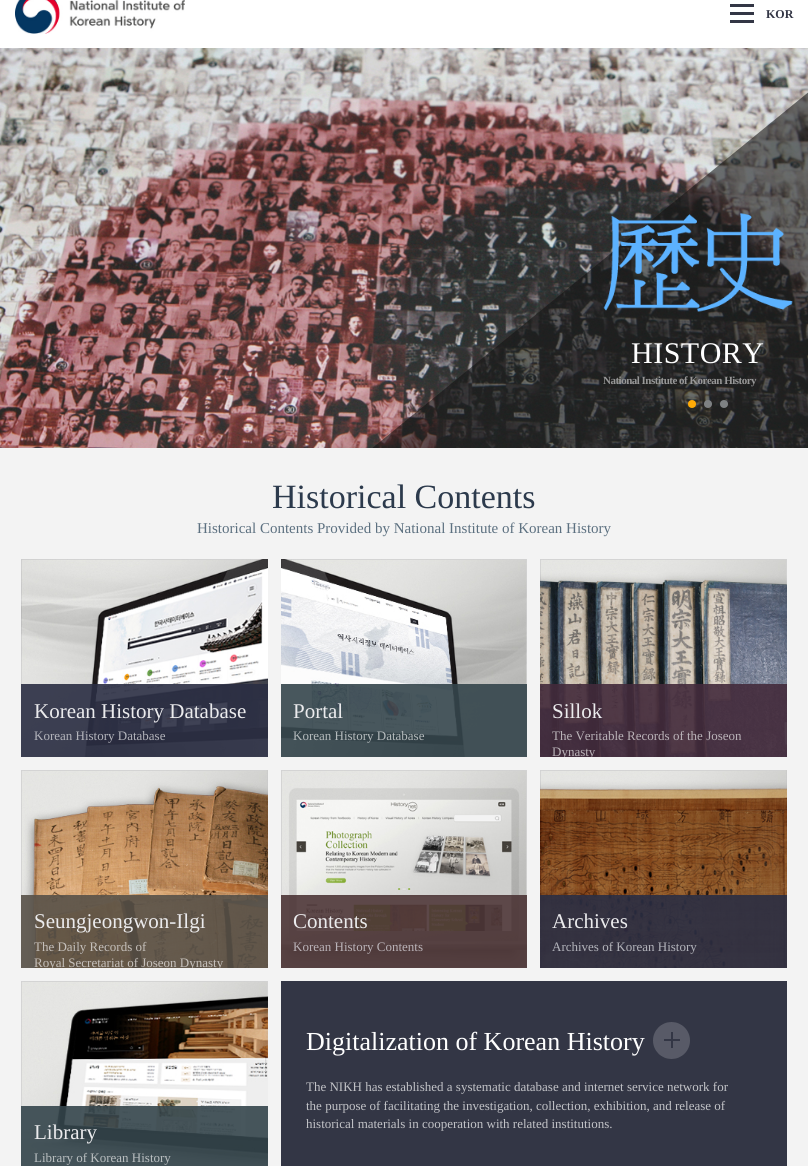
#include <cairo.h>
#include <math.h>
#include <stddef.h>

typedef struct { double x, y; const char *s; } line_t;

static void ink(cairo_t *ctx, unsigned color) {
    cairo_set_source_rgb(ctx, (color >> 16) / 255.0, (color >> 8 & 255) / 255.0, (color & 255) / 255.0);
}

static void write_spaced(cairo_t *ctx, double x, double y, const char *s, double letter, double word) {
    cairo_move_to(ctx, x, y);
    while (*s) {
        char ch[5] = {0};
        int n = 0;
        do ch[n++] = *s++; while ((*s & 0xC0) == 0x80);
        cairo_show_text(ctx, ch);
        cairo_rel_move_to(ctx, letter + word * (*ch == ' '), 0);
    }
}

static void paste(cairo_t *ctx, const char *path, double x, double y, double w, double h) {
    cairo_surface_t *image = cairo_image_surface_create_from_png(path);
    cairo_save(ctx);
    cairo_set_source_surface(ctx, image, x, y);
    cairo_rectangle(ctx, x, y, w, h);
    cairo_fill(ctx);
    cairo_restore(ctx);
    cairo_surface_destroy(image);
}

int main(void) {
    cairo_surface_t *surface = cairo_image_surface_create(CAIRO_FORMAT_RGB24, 808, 1166);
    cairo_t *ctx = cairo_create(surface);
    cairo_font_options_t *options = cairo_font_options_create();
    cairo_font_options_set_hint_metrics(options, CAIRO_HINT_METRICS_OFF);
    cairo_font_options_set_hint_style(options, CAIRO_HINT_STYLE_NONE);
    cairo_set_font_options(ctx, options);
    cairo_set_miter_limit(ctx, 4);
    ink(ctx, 0xFFFFFF);
    cairo_paint(ctx);
    paste(ctx, "media/1.png", 15, 0, 170, 34);
    paste(ctx, "media/2.png", 730, 4, 24, 19);
    cairo_select_font_face(ctx, "Liberation Serif", CAIRO_FONT_SLANT_NORMAL, CAIRO_FONT_WEIGHT_BOLD);
    cairo_set_font_size(ctx, 12);
    ink(ctx, 0x333645);
    cairo_move_to(ctx, 766, 18);
    cairo_show_text(ctx, "KOR");
    paste(ctx, "media/3.png", 0, 48, 808, 400);
    paste(ctx, "media/4.png", 373, 92, 435, 356);
    paste(ctx, "media/5.png", 603, 212, 190, 100);
    cairo_select_font_face(ctx, "Liberation Serif", CAIRO_FONT_SLANT_NORMAL, CAIRO_FONT_WEIGHT_NORMAL);
    cairo_set_font_size(ctx, 30);
    ink(ctx, 0xFFFFFF);
    write_spaced(ctx, 631, 363, "HISTORY", 0.5, 0);
    cairo_select_font_face(ctx, "Liberation Serif", CAIRO_FONT_SLANT_NORMAL, CAIRO_FONT_WEIGHT_BOLD);
    cairo_set_font_size(ctx, 11);
    ink(ctx, 0x989898);
    write_spaced(ctx, 603, 384, "National Institute of Korean History", -0.5, 0);
    ink(ctx, 0xFFAA06);
    cairo_new_path(ctx);
    cairo_arc(ctx, 692, 404, 4, 0, 2 * M_PI);
    cairo_fill(ctx);
    ink(ctx, 0x7E8183);
    cairo_arc(ctx, 708, 404, 4, 0, 2 * M_PI);
    cairo_fill(ctx);
    cairo_arc(ctx, 724, 404, 4, 0, 2 * M_PI);
    cairo_fill(ctx);
    ink(ctx, 0xF3F3F3);
    cairo_rectangle(ctx, 0, 448, 808, 718);
    cairo_fill(ctx);
    cairo_select_font_face(ctx, "Liberation Serif", CAIRO_FONT_SLANT_NORMAL, CAIRO_FONT_WEIGHT_NORMAL);
    cairo_set_font_size(ctx, 34);
    ink(ctx, 0x2C3A4C);
    cairo_move_to(ctx, 272, 508);
    cairo_show_text(ctx, "Historical Contents");
    cairo_set_font_size(ctx, 15);
    ink(ctx, 0x5C7080);
    cairo_move_to(ctx, 197, 533);
    cairo_show_text(ctx, "Historical Contents Provided by National Institute of Korean History");
    paste(ctx, "media/6.png", 21, 559, 247, 198);
    cairo_set_source_rgba(ctx, 0.169, 0.18, 0.263, 0.9);
    cairo_rectangle(ctx, 21, 684, 247, 73);
    cairo_fill(ctx);
    cairo_set_font_size(ctx, 21);
    ink(ctx, 0xEBEBED);
    cairo_move_to(ctx, 34, 718);
    cairo_show_text(ctx, "Korean History Database");
    cairo_set_font_size(ctx, 13);
    ink(ctx, 0xB3B4BB);
    cairo_move_to(ctx, 34, 740);
    cairo_show_text(ctx, "Korean History Database");
    paste(ctx, "media/7.png", 281, 559, 246, 198);
    cairo_set_source_rgba(ctx, 0.208, 0.271, 0.298, 0.9);
    cairo_rectangle(ctx, 281, 684, 246, 73);
    cairo_fill(ctx);
    cairo_set_font_size(ctx, 21);
    ink(ctx, 0xEBEBED);
    cairo_move_to(ctx, 293, 718);
    cairo_show_text(ctx, "Portal");
    cairo_set_font_size(ctx, 13);
    ink(ctx, 0xB4BABC);
    cairo_move_to(ctx, 293, 740);
    cairo_show_text(ctx, "Korean History Database");
    paste(ctx, "media/8.png", 540, 559, 247, 198);
    cairo_set_source_rgba(ctx, 0.263, 0.169, 0.231, 0.9);
    cairo_rectangle(ctx, 540, 684, 247, 73);
    cairo_fill(ctx);
    cairo_set_font_size(ctx, 21);
    ink(ctx, 0xEBEBED);
    cairo_move_to(ctx, 552, 718);
    cairo_show_text(ctx, "Sillok");
    cairo_set_font_size(ctx, 13);
    ink(ctx, 0xBAB3B8);
    cairo_move_to(ctx, 552, 740);
    cairo_show_text(ctx, "The Veritable Records of the Joseon");
    cairo_save(ctx);
    cairo_rectangle(ctx, 540, 559, 247, 198);
    cairo_clip(ctx);
    cairo_move_to(ctx, 552, 756);
    cairo_show_text(ctx, "Dynasty");
    cairo_restore(ctx);
    paste(ctx, "media/9.png", 21, 770, 247, 198);
    cairo_set_source_rgba(ctx, 0.345, 0.318, 0.286, 0.9);
    cairo_rectangle(ctx, 21, 895, 247, 73);
    cairo_fill(ctx);
    cairo_set_font_size(ctx, 21);
    ink(ctx, 0xEBEBED);
    cairo_move_to(ctx, 34, 928);
    cairo_show_text(ctx, "Seungjeongwon-Ilgi");
    cairo_set_font_size(ctx, 13);
    ink(ctx, 0xC5C0BB);
    cairo_move_to(ctx, 34, 951);
    cairo_show_text(ctx, "The Daily Records of");
    cairo_save(ctx);
    cairo_rectangle(ctx, 21, 770, 247, 198);
    cairo_clip(ctx);
    cairo_move_to(ctx, 34, 967);
    cairo_show_text(ctx, "Royal Secretariat of Joseon Dynasty");
    cairo_restore(ctx);
    paste(ctx, "media/10.png", 281, 770, 246, 198);
    cairo_set_source_rgba(ctx, 0.298, 0.208, 0.212, 0.9);
    cairo_rectangle(ctx, 281, 895, 246, 73);
    cairo_fill(ctx);
    cairo_set_font_size(ctx, 21);
    ink(ctx, 0xEBEBED);
    cairo_move_to(ctx, 293, 928);
    cairo_show_text(ctx, "Contents");
    cairo_set_font_size(ctx, 13);
    ink(ctx, 0xBAB3B8);
    cairo_move_to(ctx, 293, 951);
    cairo_show_text(ctx, "Korean History Contents");
    paste(ctx, "media/11.png", 540, 770, 247, 198);
    cairo_set_source_rgba(ctx, 0.169, 0.18, 0.263, 0.9);
    cairo_rectangle(ctx, 540, 895, 247, 73);
    cairo_fill(ctx);
    cairo_set_font_size(ctx, 21);
    ink(ctx, 0xEBEBED);
    cairo_move_to(ctx, 552, 928);
    cairo_show_text(ctx, "Archives");
    cairo_set_font_size(ctx, 13);
    ink(ctx, 0xB3B4BB);
    cairo_move_to(ctx, 552, 951);
    cairo_show_text(ctx, "Archives of Korean History");
    ink(ctx, 0x333645);
    cairo_rectangle(ctx, 281, 981, 506, 185);
    cairo_fill(ctx);
    cairo_set_font_size(ctx, 26);
    ink(ctx, 0xFFFFFF);
    cairo_move_to(ctx, 306, 1050);
    cairo_show_text(ctx, "Digitalization of Korean History");
    paste(ctx, "media/12.png", 653, 1022, 37, 37);
    cairo_set_font_size(ctx, 13);
    ink(ctx, 0xC2C3C7);
    {
        static const line_t items[] = {
            {306, 1091, "The NIKH has established a systematic database and internet service network for"},
            {306, 1110, "the purpose of facilitating the investigation, collection, exhibition, and release of"},
            {306, 1128, "historical materials in cooperation with related institutions."},
        };
        for (size_t i = 0; i < sizeof items / sizeof *items; i++) {
            cairo_move_to(ctx, items[i].x, items[i].y);
            cairo_show_text(ctx, items[i].s);
        }
    }
    paste(ctx, "media/13.png", 21, 981, 247, 185);
    cairo_set_source_rgba(ctx, 0.208, 0.271, 0.298, 0.9);
    cairo_rectangle(ctx, 21, 1106, 247, 60);
    cairo_fill(ctx);
    cairo_set_font_size(ctx, 21);
    ink(ctx, 0xEBEBED);
    cairo_move_to(ctx, 34, 1139);
    cairo_show_text(ctx, "Library");
    cairo_set_font_size(ctx, 13);
    ink(ctx, 0xBABFC1);
    cairo_move_to(ctx, 34, 1162);
    cairo_show_text(ctx, "Library of Korean History");
    cairo_surface_write_to_png(surface, "image.png");
    cairo_font_options_destroy(options);
    cairo_destroy(ctx);
    cairo_surface_destroy(surface);
    return 0;
}
